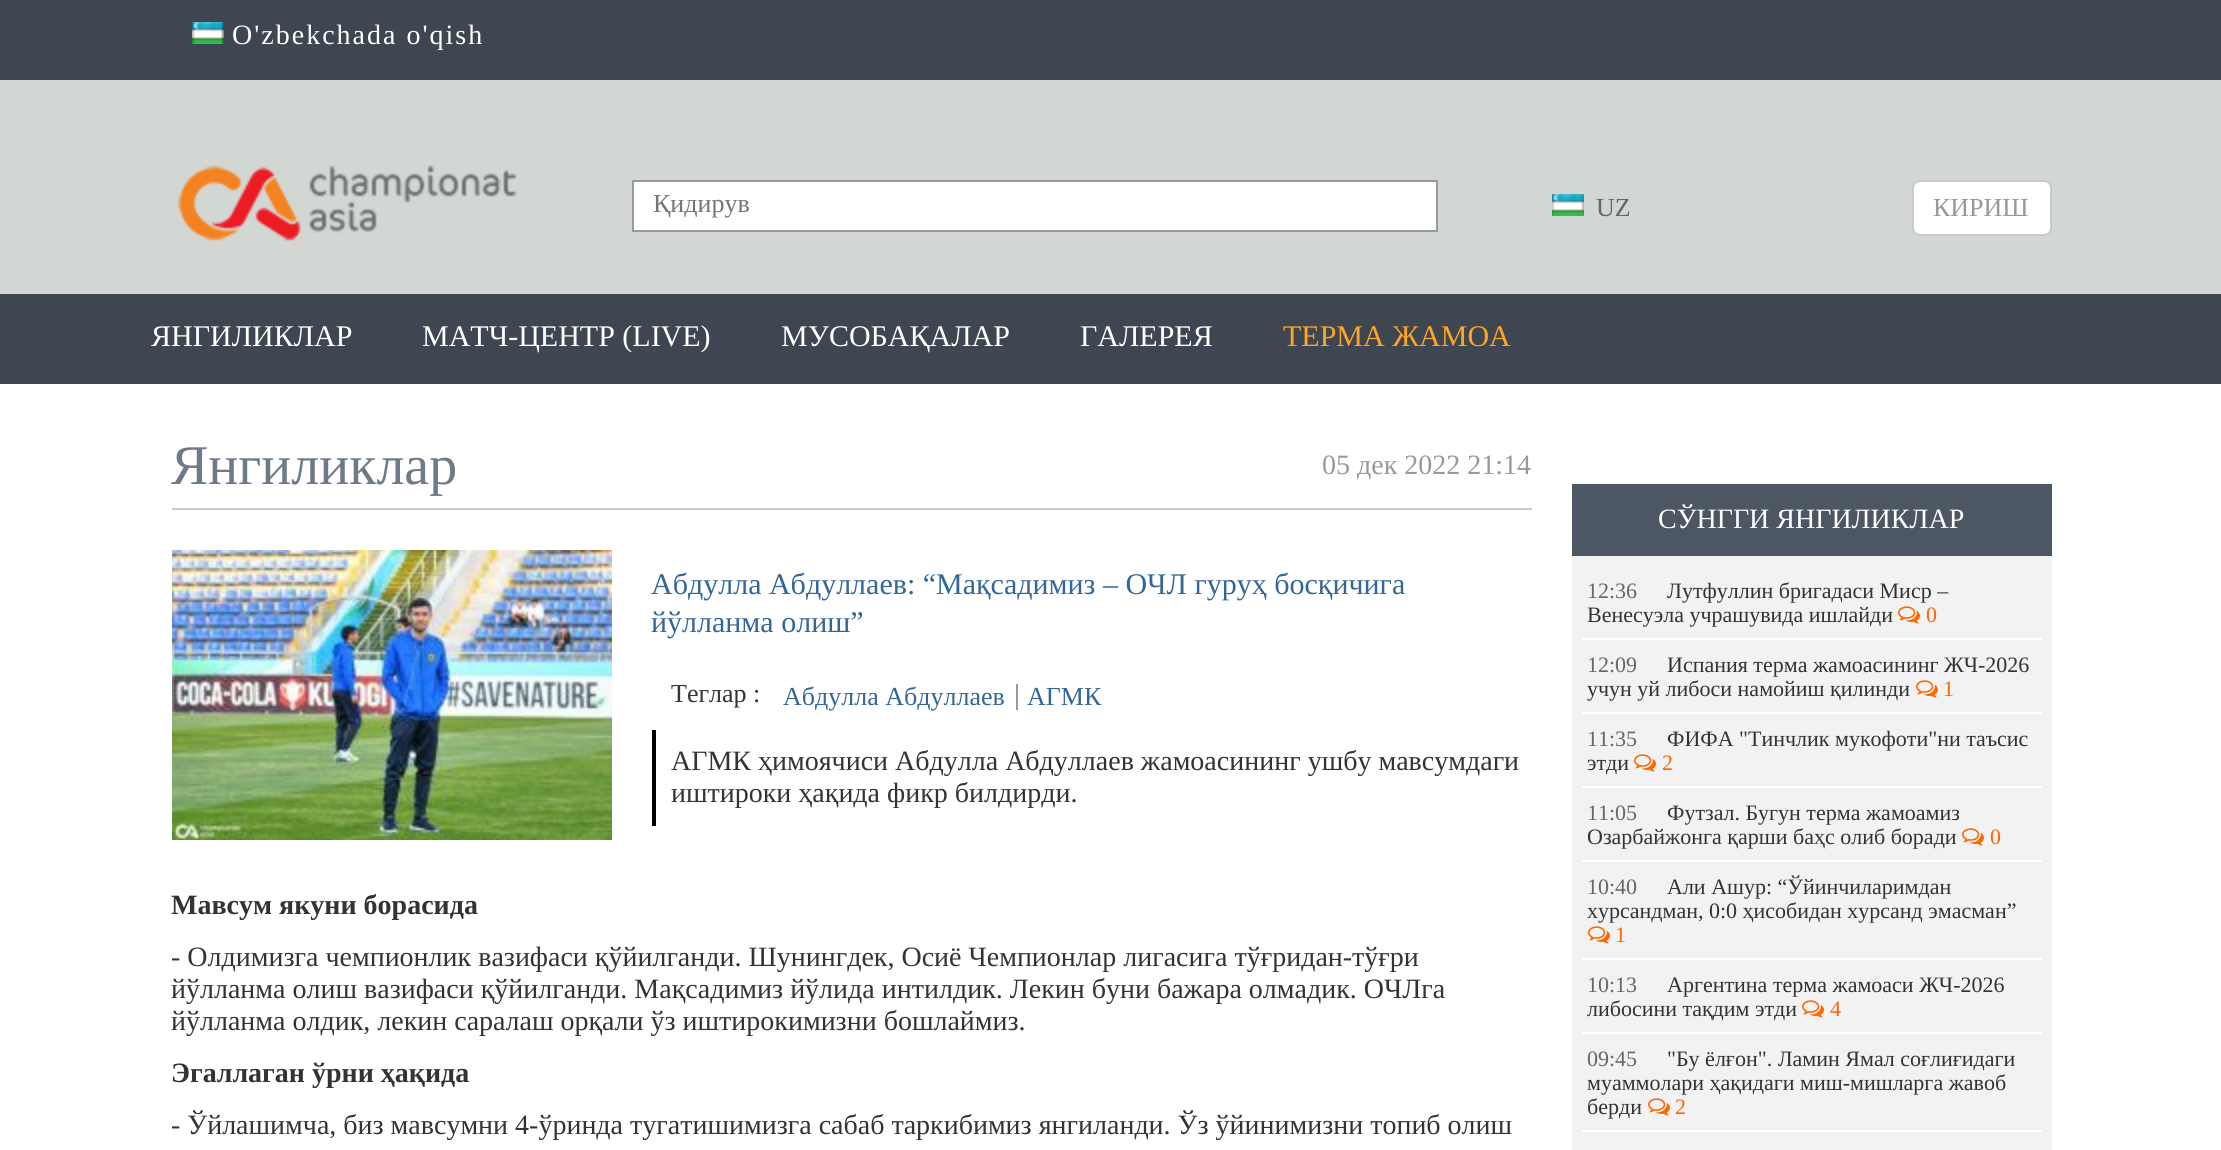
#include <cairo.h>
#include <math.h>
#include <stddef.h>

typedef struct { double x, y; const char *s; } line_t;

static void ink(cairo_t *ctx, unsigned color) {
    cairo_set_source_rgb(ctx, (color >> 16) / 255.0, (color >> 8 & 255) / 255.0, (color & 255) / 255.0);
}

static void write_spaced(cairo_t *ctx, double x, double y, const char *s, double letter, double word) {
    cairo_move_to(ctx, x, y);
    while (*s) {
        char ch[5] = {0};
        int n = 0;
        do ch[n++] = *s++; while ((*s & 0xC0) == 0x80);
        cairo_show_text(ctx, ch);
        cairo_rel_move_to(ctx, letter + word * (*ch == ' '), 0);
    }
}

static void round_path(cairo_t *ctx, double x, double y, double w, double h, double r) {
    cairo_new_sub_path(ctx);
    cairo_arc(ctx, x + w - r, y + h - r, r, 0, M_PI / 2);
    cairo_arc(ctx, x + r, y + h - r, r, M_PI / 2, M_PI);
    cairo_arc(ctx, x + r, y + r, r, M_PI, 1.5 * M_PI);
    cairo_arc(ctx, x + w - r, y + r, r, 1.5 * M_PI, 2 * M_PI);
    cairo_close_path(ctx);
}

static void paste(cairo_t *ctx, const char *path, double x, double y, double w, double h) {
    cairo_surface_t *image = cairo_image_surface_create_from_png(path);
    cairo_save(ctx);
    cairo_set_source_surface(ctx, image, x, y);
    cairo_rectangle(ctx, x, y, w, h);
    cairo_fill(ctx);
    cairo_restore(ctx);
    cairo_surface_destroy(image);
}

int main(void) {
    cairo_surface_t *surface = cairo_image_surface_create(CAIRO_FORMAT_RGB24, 2221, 1150);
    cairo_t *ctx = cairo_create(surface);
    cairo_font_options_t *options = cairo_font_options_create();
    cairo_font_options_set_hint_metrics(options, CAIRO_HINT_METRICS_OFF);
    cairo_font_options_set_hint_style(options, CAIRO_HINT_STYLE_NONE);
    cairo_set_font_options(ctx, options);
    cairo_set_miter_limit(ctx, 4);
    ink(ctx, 0xFFFFFF);
    cairo_paint(ctx);
    ink(ctx, 0x3E4651);
    cairo_rectangle(ctx, 0, 0, 2221, 80);
    cairo_fill(ctx);
    paste(ctx, "media/1.png", 192, 22, 32, 22);
    cairo_select_font_face(ctx, "Liberation Serif", CAIRO_FONT_SLANT_NORMAL, CAIRO_FONT_WEIGHT_NORMAL);
    cairo_set_font_size(ctx, 28);
    ink(ctx, 0xFFFFFF);
    write_spaced(ctx, 232, 44, "O'zbekchada o'qish", 2, 0);
    ink(ctx, 0xD2D7D3);
    cairo_rectangle(ctx, 0, 80, 2221, 214);
    cairo_fill(ctx);
    paste(ctx, "media/2.png", 177, 165, 340, 76);
    ink(ctx, 0xFFFFFF);
    cairo_rectangle(ctx, 633, 181, 804, 50);
    cairo_fill_preserve(ctx);
    ink(ctx, 0x999999);
    cairo_stroke(ctx);
    cairo_set_font_size(ctx, 26);
    ink(ctx, 0x757575);
    cairo_move_to(ctx, 653, 212);
    cairo_show_text(ctx, "Қидирув");
    paste(ctx, "media/3.png", 1552, 194, 32, 22);
    ink(ctx, 0x666666);
    cairo_move_to(ctx, 1596, 216);
    cairo_show_text(ctx, "UZ");
    ink(ctx, 0xFFFFFF);
    round_path(ctx, 1913, 181, 138, 54, 7);
    cairo_fill_preserve(ctx);
    ink(ctx, 0xCACACA);
    cairo_stroke(ctx);
    ink(ctx, 0x999999);
    cairo_move_to(ctx, 1933, 216);
    cairo_show_text(ctx, "КИРИШ");
    ink(ctx, 0x3E4651);
    cairo_rectangle(ctx, 0, 294, 2221, 90);
    cairo_fill(ctx);
    cairo_set_font_size(ctx, 30);
    ink(ctx, 0xFFFFFF);
    {
        static const line_t items[] = {
            {151, 346, "ЯНГИЛИКЛАР"},
            {422, 346, "МАТЧ-ЦЕНТР (LIVE)"},
            {781, 346, "МУСОБАҚАЛАР"},
            {1080, 346, "ГАЛЕРЕЯ"},
        };
        for (size_t i = 0; i < sizeof items / sizeof *items; i++) {
            cairo_move_to(ctx, items[i].x, items[i].y);
            cairo_show_text(ctx, items[i].s);
        }
    }
    ink(ctx, 0xFFA423);
    cairo_move_to(ctx, 1283, 346);
    cairo_show_text(ctx, "ТЕРМА ЖАМОА");
    ink(ctx, 0xCACACA);
    cairo_rectangle(ctx, 172, 508, 1360, 2);
    cairo_fill(ctx);
    cairo_set_font_size(ctx, 56);
    ink(ctx, 0x6C7A89);
    cairo_move_to(ctx, 171, 484);
    cairo_show_text(ctx, "Янгиликлар");
    cairo_set_font_size(ctx, 28);
    ink(ctx, 0x999999);
    cairo_move_to(ctx, 1322, 474);
    cairo_show_text(ctx, "05 дек 2022 21:14");
    paste(ctx, "media/4.png", 172, 550, 440, 290);
    cairo_set_font_size(ctx, 30);
    ink(ctx, 0x336699);
    cairo_move_to(ctx, 651, 594);
    cairo_show_text(ctx, "Абдулла Абдуллаев: “Мақсадимиз – ОЧЛ гуруҳ босқичига");
    cairo_move_to(ctx, 651, 632);
    cairo_show_text(ctx, "йўлланма олиш”");
    cairo_set_font_size(ctx, 26);
    ink(ctx, 0x333333);
    cairo_move_to(ctx, 671, 702);
    cairo_show_text(ctx, "Теглар :");
    ink(ctx, 0x336699);
    cairo_move_to(ctx, 783, 705);
    cairo_show_text(ctx, "Абдулла Абдуллаев");
    ink(ctx, 0x999999);
    cairo_rectangle(ctx, 1016, 684, 2, 26);
    cairo_fill(ctx);
    ink(ctx, 0x336699);
    cairo_move_to(ctx, 1027, 705);
    cairo_show_text(ctx, "АГМК");
    ink(ctx, 0x000000);
    cairo_rectangle(ctx, 652, 730, 4, 96);
    cairo_fill(ctx);
    cairo_set_font_size(ctx, 28);
    ink(ctx, 0x333333);
    cairo_move_to(ctx, 671, 770);
    cairo_show_text(ctx, "АГМК ҳимоячиси Абдулла Абдуллаев жамоасининг ушбу мавсумдаги");
    cairo_move_to(ctx, 671, 802);
    cairo_show_text(ctx, "иштироки ҳақида фикр билдирди.");
    cairo_select_font_face(ctx, "Liberation Serif", CAIRO_FONT_SLANT_NORMAL, CAIRO_FONT_WEIGHT_BOLD);
    cairo_move_to(ctx, 171, 914);
    cairo_show_text(ctx, "Мавсум якуни борасида");
    cairo_select_font_face(ctx, "Liberation Serif", CAIRO_FONT_SLANT_NORMAL, CAIRO_FONT_WEIGHT_NORMAL);
    {
        static const line_t items[] = {
            {171, 966, "- Олдимизга чемпионлик вазифаси қўйилганди. Шунингдек, Осиё Чемпионлар лигасига тўғридан-тўғри"},
            {171, 998, "йўлланма олиш вазифаси қўйилганди. Мақсадимиз йўлида интилдик. Лекин буни бажара олмадик. ОЧЛга"},
            {171, 1030, "йўлланма олдик, лекин саралаш орқали ўз иштирокимизни бошлаймиз."},
        };
        for (size_t i = 0; i < sizeof items / sizeof *items; i++) {
            cairo_move_to(ctx, items[i].x, items[i].y);
            cairo_show_text(ctx, items[i].s);
        }
    }
    cairo_select_font_face(ctx, "Liberation Serif", CAIRO_FONT_SLANT_NORMAL, CAIRO_FONT_WEIGHT_BOLD);
    cairo_move_to(ctx, 171, 1082);
    cairo_show_text(ctx, "Эгаллаган ўрни ҳақида");
    cairo_select_font_face(ctx, "Liberation Serif", CAIRO_FONT_SLANT_NORMAL, CAIRO_FONT_WEIGHT_NORMAL);
    cairo_move_to(ctx, 171, 1134);
    cairo_show_text(ctx, "- Ўйлашимча, биз мавсумни 4-ўринда тугатишимизга сабаб таркибимиз янгиланди. Ўз ўйинимизни топиб олиш");
    ink(ctx, 0x4D5764);
    cairo_rectangle(ctx, 1572, 484, 480, 72);
    cairo_fill(ctx);
    ink(ctx, 0xFFFFFF);
    cairo_move_to(ctx, 1658, 528);
    cairo_show_text(ctx, "СЎНГГИ ЯНГИЛИКЛАР");
    ink(ctx, 0xF2F2F2);
    cairo_rectangle(ctx, 1572, 556, 480, 594);
    cairo_fill(ctx);
    cairo_set_font_size(ctx, 22);
    ink(ctx, 0x666666);
    cairo_move_to(ctx, 1587, 598);
    cairo_show_text(ctx, "12:36");
    ink(ctx, 0x333333);
    cairo_move_to(ctx, 1667, 598);
    cairo_show_text(ctx, "Лутфуллин бригадаси Миср –");
    cairo_move_to(ctx, 1587, 622);
    cairo_show_text(ctx, "Венесуэла учрашувида ишлайди");
    paste(ctx, "media/5.png", 1898, 606, 22, 18);
    ink(ctx, 0xFF6600);
    cairo_move_to(ctx, 1926, 622);
    cairo_show_text(ctx, "0");
    ink(ctx, 0xFFFFFF);
    cairo_rectangle(ctx, 1582, 638, 460, 2);
    cairo_fill(ctx);
    ink(ctx, 0x666666);
    cairo_move_to(ctx, 1587, 672);
    cairo_show_text(ctx, "12:09");
    ink(ctx, 0x333333);
    cairo_move_to(ctx, 1667, 672);
    cairo_show_text(ctx, "Испания терма жамоасининг ЖЧ-2026");
    cairo_move_to(ctx, 1587, 696);
    cairo_show_text(ctx, "учун уй либоси намойиш қилинди");
    paste(ctx, "media/5.png", 1916, 680, 22, 18);
    ink(ctx, 0xFF6600);
    cairo_move_to(ctx, 1943, 696);
    cairo_show_text(ctx, "1");
    ink(ctx, 0xFFFFFF);
    cairo_rectangle(ctx, 1582, 712, 460, 2);
    cairo_fill(ctx);
    ink(ctx, 0x666666);
    cairo_move_to(ctx, 1587, 746);
    cairo_show_text(ctx, "11:35");
    ink(ctx, 0x333333);
    cairo_move_to(ctx, 1667, 746);
    cairo_show_text(ctx, "ФИФА \"Тинчлик мукофоти\"ни таъсис");
    cairo_move_to(ctx, 1587, 770);
    cairo_show_text(ctx, "этди");
    paste(ctx, "media/5.png", 1634, 754, 22, 18);
    ink(ctx, 0xFF6600);
    cairo_move_to(ctx, 1662, 770);
    cairo_show_text(ctx, "2");
    ink(ctx, 0xFFFFFF);
    cairo_rectangle(ctx, 1582, 786, 460, 2);
    cairo_fill(ctx);
    ink(ctx, 0x666666);
    cairo_move_to(ctx, 1587, 820);
    cairo_show_text(ctx, "11:05");
    ink(ctx, 0x333333);
    cairo_move_to(ctx, 1667, 820);
    cairo_show_text(ctx, "Футзал. Бугун терма жамоамиз");
    cairo_move_to(ctx, 1587, 844);
    cairo_show_text(ctx, "Озарбайжонга қарши баҳс олиб боради");
    paste(ctx, "media/5.png", 1962, 828, 22, 18);
    ink(ctx, 0xFF6600);
    cairo_move_to(ctx, 1990, 844);
    cairo_show_text(ctx, "0");
    ink(ctx, 0xFFFFFF);
    cairo_rectangle(ctx, 1582, 860, 460, 2);
    cairo_fill(ctx);
    ink(ctx, 0x666666);
    cairo_move_to(ctx, 1587, 894);
    cairo_show_text(ctx, "10:40");
    ink(ctx, 0x333333);
    cairo_move_to(ctx, 1667, 894);
    cairo_show_text(ctx, "Али Ашур: “Ўйинчиларимдан");
    cairo_move_to(ctx, 1587, 918);
    cairo_show_text(ctx, "хурсандман, 0:0 ҳисобидан хурсанд эмасман”");
    paste(ctx, "media/5.png", 1588, 926, 22, 18);
    ink(ctx, 0xFF6600);
    cairo_move_to(ctx, 1615, 942);
    cairo_show_text(ctx, "1");
    ink(ctx, 0xFFFFFF);
    cairo_rectangle(ctx, 1582, 958, 460, 2);
    cairo_fill(ctx);
    ink(ctx, 0x666666);
    cairo_move_to(ctx, 1587, 992);
    cairo_show_text(ctx, "10:13");
    ink(ctx, 0x333333);
    cairo_move_to(ctx, 1667, 992);
    cairo_show_text(ctx, "Аргентина терма жамоаси ЖЧ-2026");
    cairo_move_to(ctx, 1587, 1016);
    cairo_show_text(ctx, "либосини тақдим этди");
    paste(ctx, "media/5.png", 1802, 1000, 22, 18);
    ink(ctx, 0xFF6600);
    cairo_move_to(ctx, 1830, 1016);
    cairo_show_text(ctx, "4");
    ink(ctx, 0xFFFFFF);
    cairo_rectangle(ctx, 1582, 1032, 460, 2);
    cairo_fill(ctx);
    ink(ctx, 0x666666);
    cairo_move_to(ctx, 1587, 1066);
    cairo_show_text(ctx, "09:45");
    ink(ctx, 0x333333);
    {
        static const line_t items[] = {
            {1667, 1066, "\"Бу ёлғон\". Ламин Ямал соғлиғидаги"},
            {1587, 1090, "муаммолари ҳақидаги миш-мишларга жавоб"},
            {1587, 1114, "берди"},
        };
        for (size_t i = 0; i < sizeof items / sizeof *items; i++) {
            cairo_move_to(ctx, items[i].x, items[i].y);
            cairo_show_text(ctx, items[i].s);
        }
    }
    paste(ctx, "media/5.png", 1648, 1098, 22, 18);
    ink(ctx, 0xFF6600);
    cairo_move_to(ctx, 1675, 1114);
    cairo_show_text(ctx, "2");
    ink(ctx, 0xFFFFFF);
    cairo_rectangle(ctx, 1582, 1130, 460, 2);
    cairo_fill(ctx);
    cairo_surface_write_to_png(surface, "image.png");
    cairo_font_options_destroy(options);
    cairo_destroy(ctx);
    cairo_surface_destroy(surface);
    return 0;
}
